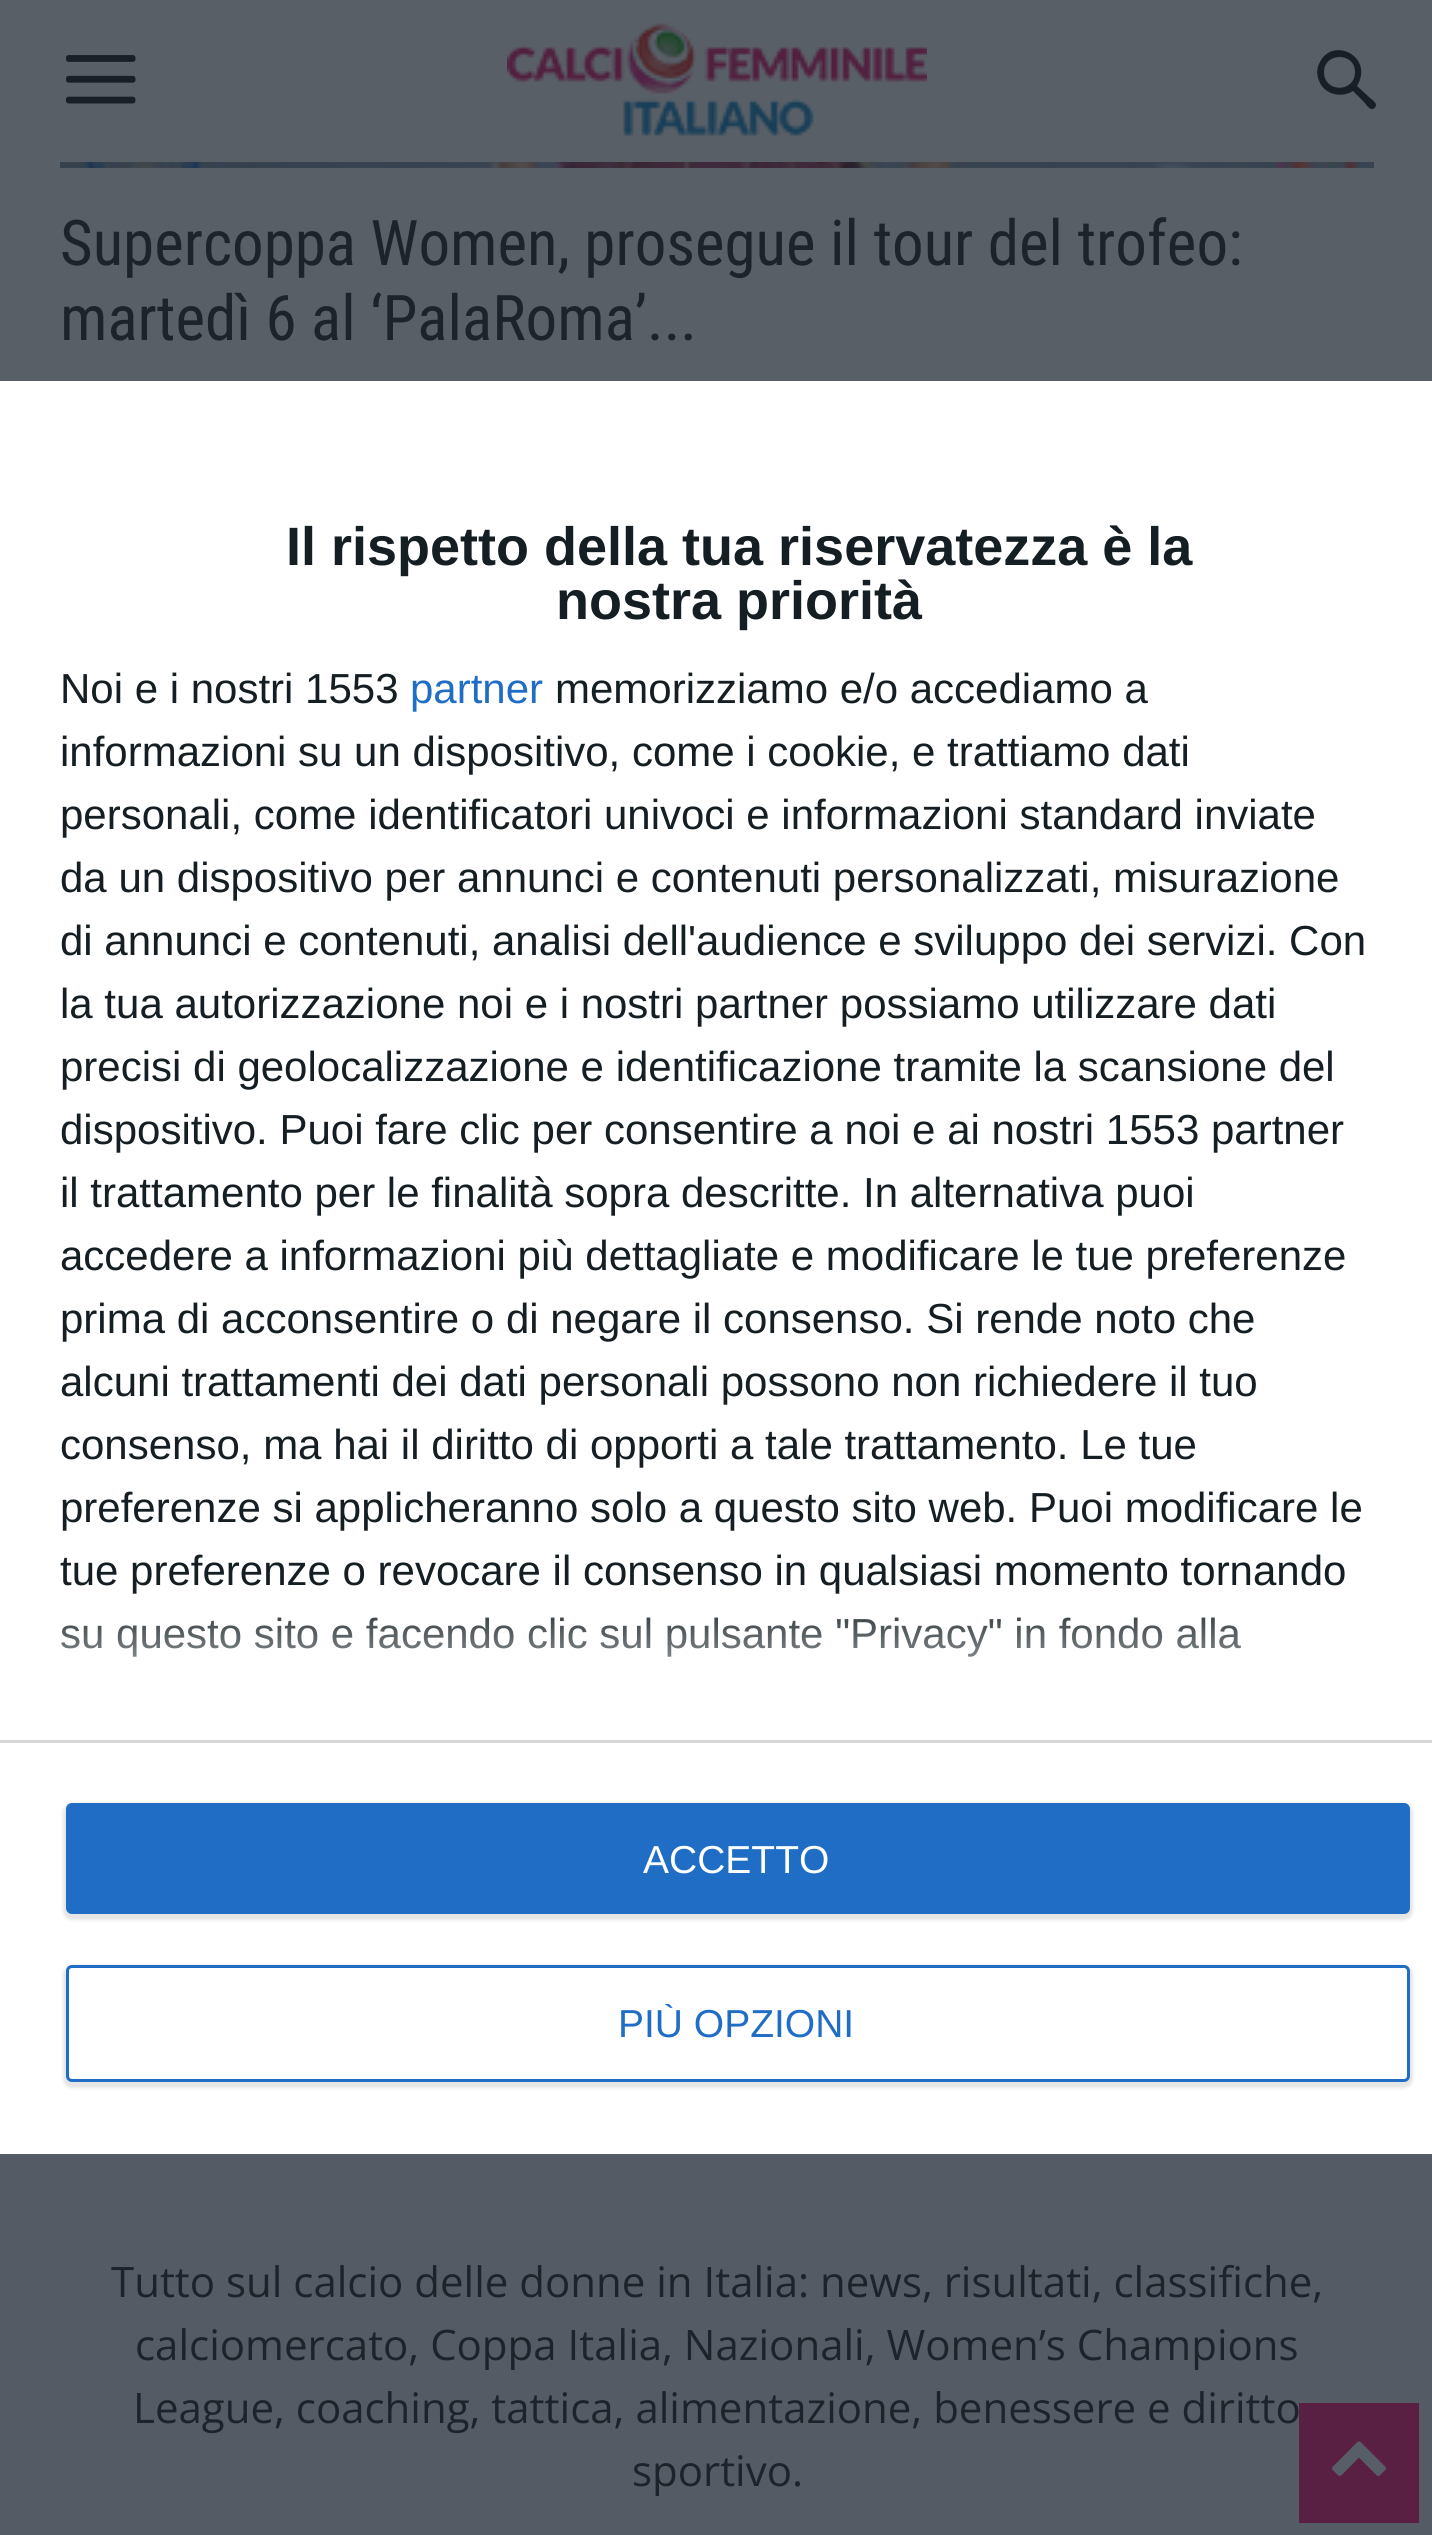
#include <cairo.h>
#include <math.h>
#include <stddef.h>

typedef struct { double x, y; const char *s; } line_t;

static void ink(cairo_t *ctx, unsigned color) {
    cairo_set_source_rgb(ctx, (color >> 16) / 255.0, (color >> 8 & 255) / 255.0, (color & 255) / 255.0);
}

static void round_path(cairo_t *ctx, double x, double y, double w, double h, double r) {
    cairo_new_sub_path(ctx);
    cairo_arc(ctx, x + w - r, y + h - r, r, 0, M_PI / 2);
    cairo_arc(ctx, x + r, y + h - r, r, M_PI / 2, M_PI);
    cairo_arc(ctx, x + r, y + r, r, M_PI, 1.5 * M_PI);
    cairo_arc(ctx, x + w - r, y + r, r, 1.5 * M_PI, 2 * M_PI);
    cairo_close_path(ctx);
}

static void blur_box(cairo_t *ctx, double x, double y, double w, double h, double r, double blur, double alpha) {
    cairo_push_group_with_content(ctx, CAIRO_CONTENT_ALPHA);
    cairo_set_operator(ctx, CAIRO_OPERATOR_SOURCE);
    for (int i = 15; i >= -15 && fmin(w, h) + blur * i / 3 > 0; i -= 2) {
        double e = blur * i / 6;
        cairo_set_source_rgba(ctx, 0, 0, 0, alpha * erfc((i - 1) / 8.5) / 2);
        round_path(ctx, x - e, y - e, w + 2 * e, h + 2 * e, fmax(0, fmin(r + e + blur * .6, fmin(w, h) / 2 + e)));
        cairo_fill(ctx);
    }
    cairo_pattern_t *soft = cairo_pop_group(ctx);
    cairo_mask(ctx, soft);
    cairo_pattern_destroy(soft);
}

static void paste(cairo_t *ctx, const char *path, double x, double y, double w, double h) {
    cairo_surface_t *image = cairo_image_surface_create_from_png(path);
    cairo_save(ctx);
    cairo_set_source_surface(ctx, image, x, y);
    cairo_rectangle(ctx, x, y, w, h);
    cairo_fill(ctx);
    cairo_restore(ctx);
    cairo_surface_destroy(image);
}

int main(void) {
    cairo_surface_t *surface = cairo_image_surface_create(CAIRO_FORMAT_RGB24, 1432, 2535);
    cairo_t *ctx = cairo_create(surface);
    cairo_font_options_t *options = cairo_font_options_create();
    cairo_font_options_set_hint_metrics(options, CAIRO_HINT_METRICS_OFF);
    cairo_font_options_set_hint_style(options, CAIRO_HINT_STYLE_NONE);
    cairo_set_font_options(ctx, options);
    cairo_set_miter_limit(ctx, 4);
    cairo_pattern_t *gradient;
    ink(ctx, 0x595F67);
    cairo_paint(ctx);
    paste(ctx, "media/1.png", 66, 55, 70, 49);
    paste(ctx, "media/2.png", 507, 23, 420, 113);
    ink(ctx, 0x191F27);
    cairo_new_path(ctx);
    cairo_move_to(ctx, 1355, 72);
    cairo_curve_to(ctx, 1355, 93, 1324, 93, 1324, 72);
    cairo_curve_to(ctx, 1324, 52, 1355, 52, 1355, 72);
    cairo_close_path(ctx);
    cairo_move_to(ctx, 1376, 105);
    cairo_curve_to(ctx, 1376, 102, 1371, 99, 1369, 97);
    cairo_line_to(ctx, 1357, 86);
    cairo_curve_to(ctx, 1375, 56, 1331, 35, 1319, 64);
    cairo_curve_to(ctx, 1316, 70, 1317, 77, 1320, 83);
    cairo_curve_to(ctx, 1326, 95, 1342, 98, 1353, 91);
    cairo_line_to(ctx, 1364, 102);
    cairo_curve_to(ctx, 1366, 104, 1369, 110, 1373, 109);
    cairo_curve_to(ctx, 1374, 109, 1376, 107, 1376, 105);
    cairo_close_path(ctx);
    cairo_fill(ctx);
    paste(ctx, "media/3.png", 60, 162, 1314, 6);
    cairo_select_font_face(ctx, "Roboto Condensed", CAIRO_FONT_SLANT_NORMAL, CAIRO_FONT_WEIGHT_NORMAL);
    cairo_set_font_size(ctx, 63);
    ink(ctx, 0x1D232B);
    cairo_move_to(ctx, 60, 265);
    cairo_show_text(ctx, "Supercoppa Women, prosegue il tour del trofeo:");
    cairo_move_to(ctx, 60, 340);
    cairo_show_text(ctx, "martedì 6 al ‘PalaRoma’...");
    ink(ctx, 0x555B64);
    cairo_rectangle(ctx, 0, 2154, 1432, 381);
    cairo_fill(ctx);
    cairo_select_font_face(ctx, "Open Sans", CAIRO_FONT_SLANT_NORMAL, CAIRO_FONT_WEIGHT_NORMAL);
    cairo_set_font_size(ctx, 42);
    ink(ctx, 0x1D232B);
    {
        static const line_t items[] = {
            {111, 2297, "Tutto sul calcio delle donne in Italia: news, risultati, classifiche,"},
            {135, 2360, "calciomercato, Coppa Italia, Nazionali, Women’s Champions"},
            {133, 2423, "League, coaching, tattica, alimentazione, benessere e diritto"},
            {632, 2486, "sportivo."},
        };
        for (size_t i = 0; i < sizeof items / sizeof *items; i++) {
            cairo_move_to(ctx, items[i].x, items[i].y);
            cairo_show_text(ctx, items[i].s);
        }
    }
    ink(ctx, 0xFFFFFF);
    cairo_rectangle(ctx, 0, 381, 1432, 1773);
    cairo_fill(ctx);
    cairo_select_font_face(ctx, "Liberation Sans", CAIRO_FONT_SLANT_NORMAL, CAIRO_FONT_WEIGHT_BOLD);
    cairo_set_font_size(ctx, 54);
    ink(ctx, 0x141E23);
    cairo_move_to(ctx, 286, 565);
    cairo_show_text(ctx, "Il rispetto della tua riservatezza è la");
    cairo_move_to(ctx, 556, 619);
    cairo_show_text(ctx, "nostra priorità");
    cairo_select_font_face(ctx, "Liberation Sans", CAIRO_FONT_SLANT_NORMAL, CAIRO_FONT_WEIGHT_NORMAL);
    cairo_set_font_size(ctx, 42);
    cairo_move_to(ctx, 60, 703);
    cairo_show_text(ctx, "Noi e i nostri 1553");
    ink(ctx, 0x206DC5);
    cairo_move_to(ctx, 410, 703);
    cairo_show_text(ctx, "partner");
    ink(ctx, 0x141E23);
    {
        static const line_t items[] = {
            {555, 703, "memorizziamo e/o accediamo a"},
            {60, 766, "informazioni su un dispositivo, come i cookie, e trattiamo dati"},
            {60, 829, "personali, come identificatori univoci e informazioni standard inviate"},
            {60, 892, "da un dispositivo per annunci e contenuti personalizzati, misurazione"},
            {60, 955, "di annunci e contenuti, analisi dell'audience e sviluppo dei servizi. Con"},
            {60, 1018, "la tua autorizzazione noi e i nostri partner possiamo utilizzare dati"},
            {60, 1081, "precisi di geolocalizzazione e identificazione tramite la scansione del"},
            {60, 1144, "dispositivo. Puoi fare clic per consentire a noi e ai nostri 1553 partner"},
            {60, 1207, "il trattamento per le finalità sopra descritte. In alternativa puoi"},
            {60, 1270, "accedere a informazioni più dettagliate e modificare le tue preferenze"},
            {60, 1333, "prima di acconsentire o di negare il consenso. Si rende noto che"},
            {60, 1396, "alcuni trattamenti dei dati personali possono non richiedere il tuo"},
            {60, 1459, "consenso, ma hai il diritto di opporti a tale trattamento. Le tue"},
            {60, 1522, "preferenze si applicheranno solo a questo sito web. Puoi modificare le"},
            {60, 1585, "tue preferenze o revocare il consenso in qualsiasi momento tornando"},
            {60, 1648, "su questo sito e facendo clic sul pulsante \"Privacy\" in fondo alla"},
        };
        for (size_t i = 0; i < sizeof items / sizeof *items; i++) {
            cairo_move_to(ctx, items[i].x, items[i].y);
            cairo_show_text(ctx, items[i].s);
        }
    }
    ink(ctx, 0xD8D8D8);
    cairo_rectangle(ctx, 0, 1740, 1432, 3);
    cairo_fill(ctx);
    gradient = cairo_pattern_create_linear(717, 1740, 717, 1590);
    cairo_pattern_add_color_stop_rgba(gradient, 0, 1, 1, 1, 1);
    cairo_pattern_add_color_stop_rgba(gradient, 1, 1, 1, 1, 0);
    cairo_set_source(ctx, gradient);
    cairo_pattern_destroy(gradient);
    cairo_rectangle(ctx, 61, 1593, 1180, 64);
    cairo_fill(ctx);
    ink(ctx, 0x000000);
    blur_box(ctx, 63, 1803, 1350, 117, 9, 1.5, 0.1);
    ink(ctx, 0x206DC5);
    round_path(ctx, 66, 1803, 1344, 111, 6);
    cairo_fill(ctx);
    cairo_set_font_size(ctx, 39);
    ink(ctx, 0xFFFFFF);
    cairo_move_to(ctx, 643, 1873);
    cairo_show_text(ctx, "ACCETTO");
    ink(ctx, 0x000000);
    blur_box(ctx, 63, 1965, 1350, 123, 9, 1.5, 0.1);
    ink(ctx, 0xFFFFFF);
    round_path(ctx, 67.5, 1966.5, 1341, 114, 4.5);
    cairo_fill_preserve(ctx);
    ink(ctx, 0x206DC5);
    cairo_set_line_width(ctx, 3);
    cairo_stroke(ctx);
    cairo_save(ctx);
    cairo_rectangle(ctx, 618, 2004, 237, 39);
    cairo_clip(ctx);
    cairo_move_to(ctx, 618, 2037);
    cairo_show_text(ctx, "PIÙ OPZIONI");
    cairo_restore(ctx);
    ink(ctx, 0x592043);
    cairo_rectangle(ctx, 1299, 2403, 120, 120);
    cairo_fill(ctx);
    paste(ctx, "media/4.png", 1332, 2441, 54, 35);
    cairo_surface_write_to_png(surface, "image.png");
    cairo_font_options_destroy(options);
    cairo_destroy(ctx);
    cairo_surface_destroy(surface);
    return 0;
}
